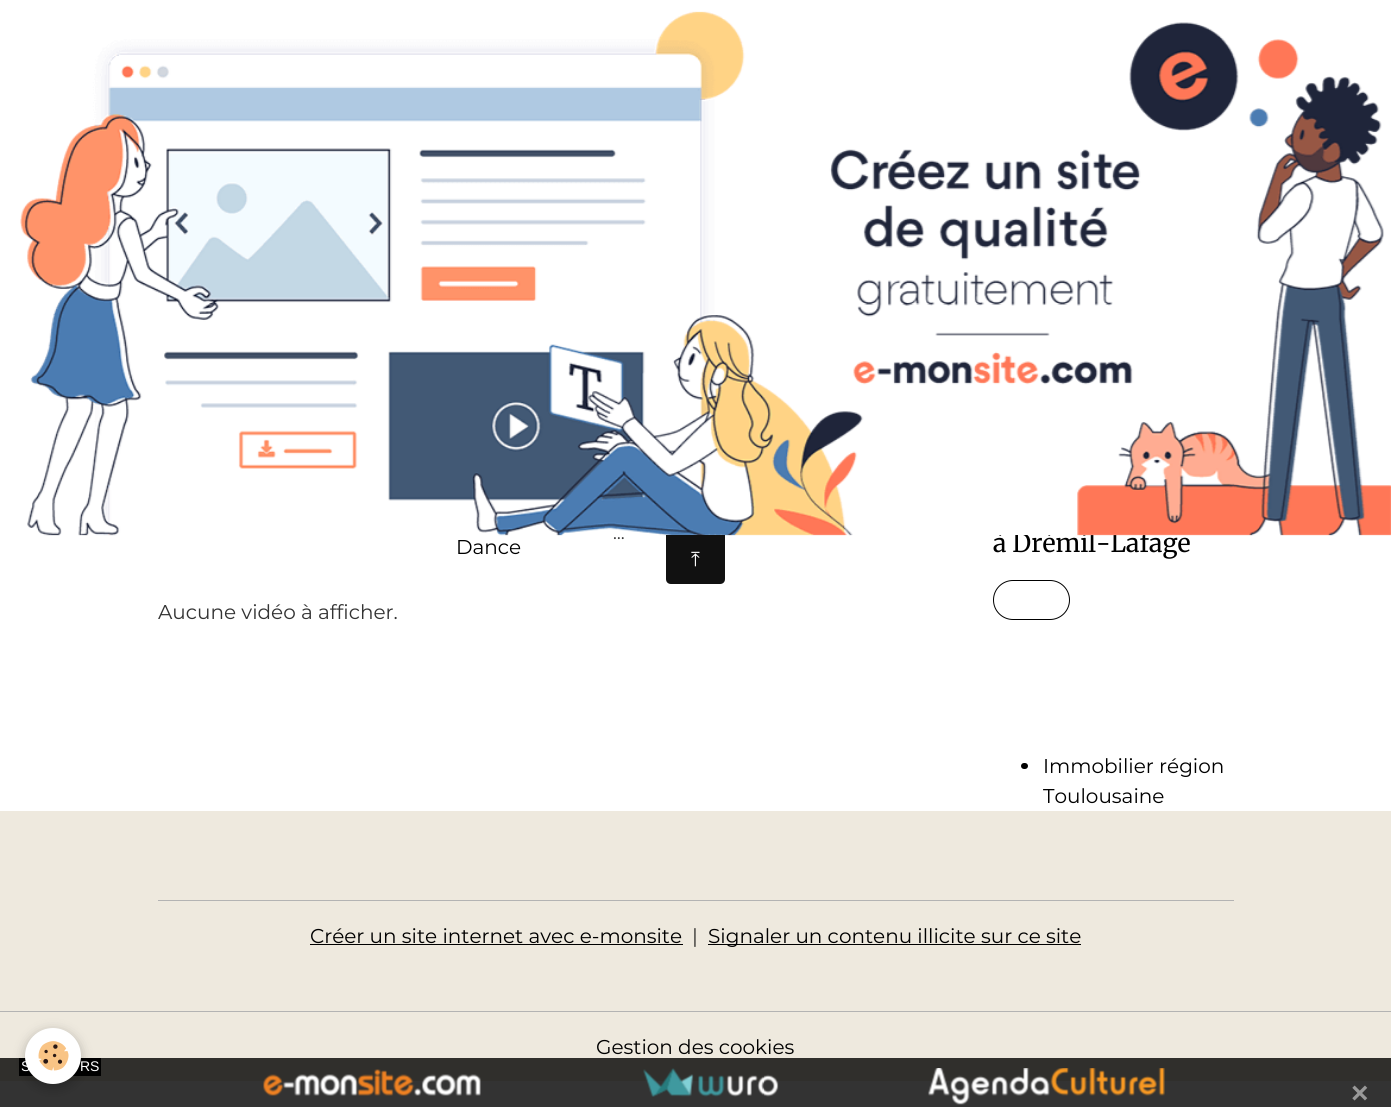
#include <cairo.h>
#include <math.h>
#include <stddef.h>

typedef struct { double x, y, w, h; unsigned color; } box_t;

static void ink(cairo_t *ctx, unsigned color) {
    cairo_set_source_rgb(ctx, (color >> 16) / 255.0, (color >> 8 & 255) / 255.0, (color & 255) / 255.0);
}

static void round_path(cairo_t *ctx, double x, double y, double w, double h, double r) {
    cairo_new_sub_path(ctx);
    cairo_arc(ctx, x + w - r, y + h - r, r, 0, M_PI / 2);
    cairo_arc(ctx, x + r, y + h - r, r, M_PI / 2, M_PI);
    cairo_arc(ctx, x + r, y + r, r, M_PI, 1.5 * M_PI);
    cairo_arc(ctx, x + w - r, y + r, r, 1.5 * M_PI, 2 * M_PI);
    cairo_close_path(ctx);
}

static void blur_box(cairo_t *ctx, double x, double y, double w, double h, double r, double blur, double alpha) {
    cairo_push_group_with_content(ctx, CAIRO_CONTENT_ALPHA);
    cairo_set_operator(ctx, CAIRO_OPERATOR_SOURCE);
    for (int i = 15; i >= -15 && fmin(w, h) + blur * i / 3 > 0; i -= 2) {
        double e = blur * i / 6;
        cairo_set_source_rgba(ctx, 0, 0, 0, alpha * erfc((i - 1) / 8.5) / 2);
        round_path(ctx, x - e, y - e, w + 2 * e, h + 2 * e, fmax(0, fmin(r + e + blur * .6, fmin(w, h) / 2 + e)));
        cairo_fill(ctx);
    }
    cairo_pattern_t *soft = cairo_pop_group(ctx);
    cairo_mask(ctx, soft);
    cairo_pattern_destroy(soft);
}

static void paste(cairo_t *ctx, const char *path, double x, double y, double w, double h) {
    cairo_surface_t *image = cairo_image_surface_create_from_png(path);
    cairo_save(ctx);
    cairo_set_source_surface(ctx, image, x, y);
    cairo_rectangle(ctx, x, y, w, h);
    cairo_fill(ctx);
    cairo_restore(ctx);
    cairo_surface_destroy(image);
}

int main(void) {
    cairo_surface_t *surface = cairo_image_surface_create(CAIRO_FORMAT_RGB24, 1391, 1107);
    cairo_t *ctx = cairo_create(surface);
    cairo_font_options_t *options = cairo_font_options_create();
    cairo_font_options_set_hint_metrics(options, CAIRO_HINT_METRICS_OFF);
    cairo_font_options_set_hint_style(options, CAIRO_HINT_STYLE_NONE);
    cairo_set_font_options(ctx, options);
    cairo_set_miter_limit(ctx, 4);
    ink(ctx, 0xFFFFFF);
    cairo_paint(ctx);
    ink(ctx, 0x333333);
    cairo_rectangle(ctx, 0, 1081, 1391, 26);
    cairo_fill(ctx);
    cairo_select_font_face(ctx, "Montserrat", CAIRO_FONT_SLANT_NORMAL, CAIRO_FONT_WEIGHT_NORMAL);
    cairo_set_font_size(ctx, 18);
    cairo_move_to(ctx, 613, 539);
    cairo_show_text(ctx, "…");
    cairo_set_font_size(ctx, 20);
    ink(ctx, 0x000000);
    cairo_move_to(ctx, 456, 554);
    cairo_show_text(ctx, "Dance");
    ink(ctx, 0x333333);
    cairo_move_to(ctx, 158, 619);
    cairo_show_text(ctx, "Aucune vidéo à afficher.");
    cairo_select_font_face(ctx, "Merriweather", CAIRO_FONT_SLANT_NORMAL, CAIRO_FONT_WEIGHT_NORMAL);
    cairo_set_font_size(ctx, 25);
    ink(ctx, 0x000000);
    cairo_move_to(ctx, 993, 552);
    cairo_show_text(ctx, "à Drémil-Lafage");
    round_path(ctx, 993.5, 580.5, 76, 39, 19.5);
    cairo_set_line_width(ctx, 1);
    cairo_stroke(ctx);
    round_path(ctx, 1021, 763, 7, 6, 3);
    cairo_fill(ctx);
    cairo_select_font_face(ctx, "Montserrat", CAIRO_FONT_SLANT_NORMAL, CAIRO_FONT_WEIGHT_NORMAL);
    cairo_set_font_size(ctx, 20);
    cairo_move_to(ctx, 1043, 773);
    cairo_show_text(ctx, "Immobilier région");
    cairo_move_to(ctx, 1043, 803);
    cairo_show_text(ctx, "Toulousaine");
    ink(ctx, 0xFFFFFF);
    cairo_rectangle(ctx, 995, 530, 155, 5);
    cairo_fill(ctx);
    paste(ctx, "media/1.png", 20, 11, 1371, 525);
    ink(ctx, 0x111111);
    cairo_new_path(ctx);
    cairo_move_to(ctx, 666, 535);
    cairo_line_to(ctx, 725, 535);
    cairo_line_to(ctx, 725, 579);
    cairo_curve_to(ctx, 725, 582, 723, 584, 720, 584);
    cairo_line_to(ctx, 671, 584);
    cairo_curve_to(ctx, 668, 584, 666, 582, 666, 579);
    cairo_close_path(ctx);
    cairo_fill(ctx);
    cairo_select_font_face(ctx, "FreeSerif", CAIRO_FONT_SLANT_NORMAL, CAIRO_FONT_WEIGHT_NORMAL);
    ink(ctx, 0xFFFFFF);
    cairo_move_to(ctx, 691, 566);
    cairo_show_text(ctx, "⤒");
    {
        static const box_t items[] = {
            {0, 811, 1391, 247, 0xEEE9DE},
            {0, 1058, 1391, 23, 0x302F2C},
            {19, 1058, 82, 18, 0x000000},
        };
        for (size_t i = 0; i < sizeof items / sizeof *items; i++) {
            ink(ctx, items[i].color);
            cairo_rectangle(ctx, items[i].x, items[i].y, items[i].w, items[i].h);
            cairo_fill(ctx);
        }
    }
    ink(ctx, 0x000000);
    blur_box(ctx, 25, 1031, 56, 57, 28, 6, 0.24);
    ink(ctx, 0xFFFFFF);
    cairo_arc(ctx, 53, 1056, 28, 0, 2 * M_PI);
    cairo_fill(ctx);
    paste(ctx, "media/2.png", 38, 1041, 31, 30);
    ink(ctx, 0xB3B3B3);
    cairo_rectangle(ctx, 158, 900, 1076, 1);
    cairo_fill(ctx);
    cairo_select_font_face(ctx, "Montserrat", CAIRO_FONT_SLANT_NORMAL, CAIRO_FONT_WEIGHT_NORMAL);
    ink(ctx, 0x000000);
    cairo_move_to(ctx, 310, 943);
    cairo_show_text(ctx, "Créer un site internet avec e-monsite");
    cairo_rectangle(ctx, 310, 944, 373, 1);
    cairo_fill(ctx);
    ink(ctx, 0x302F2C);
    cairo_move_to(ctx, 692, 943);
    cairo_show_text(ctx, "|");
    ink(ctx, 0x000000);
    cairo_rectangle(ctx, 708, 944, 373, 1);
    cairo_fill(ctx);
    cairo_move_to(ctx, 708, 943);
    cairo_show_text(ctx, "Signaler un contenu illicite sur ce site");
    ink(ctx, 0xB3B3B3);
    cairo_rectangle(ctx, 0, 1011, 1391, 1);
    cairo_fill(ctx);
    ink(ctx, 0x000000);
    cairo_move_to(ctx, 596, 1054);
    cairo_show_text(ctx, "Gestion des cookies");
    cairo_select_font_face(ctx, "Liberation Sans", CAIRO_FONT_SLANT_NORMAL, CAIRO_FONT_WEIGHT_NORMAL);
    cairo_set_font_size(ctx, 14);
    ink(ctx, 0xFFFFFF);
    cairo_move_to(ctx, 21, 1071);
    cairo_show_text(ctx, "S");
    cairo_move_to(ctx, 80, 1071);
    cairo_show_text(ctx, "RS");
    paste(ctx, "media/3.png", 263, 1069, 218, 27);
    paste(ctx, "media/4.png", 643, 1068, 136, 29);
    paste(ctx, "media/5.png", 928, 1068, 237, 37);
    cairo_select_font_face(ctx, "Liberation Sans", CAIRO_FONT_SLANT_NORMAL, CAIRO_FONT_WEIGHT_BOLD);
    cairo_set_font_size(ctx, 30);
    ink(ctx, 0x999999);
    cairo_move_to(ctx, 1351, 1103);
    cairo_show_text(ctx, "×");
    cairo_surface_write_to_png(surface, "image.png");
    cairo_font_options_destroy(options);
    cairo_destroy(ctx);
    cairo_surface_destroy(surface);
    return 0;
}
